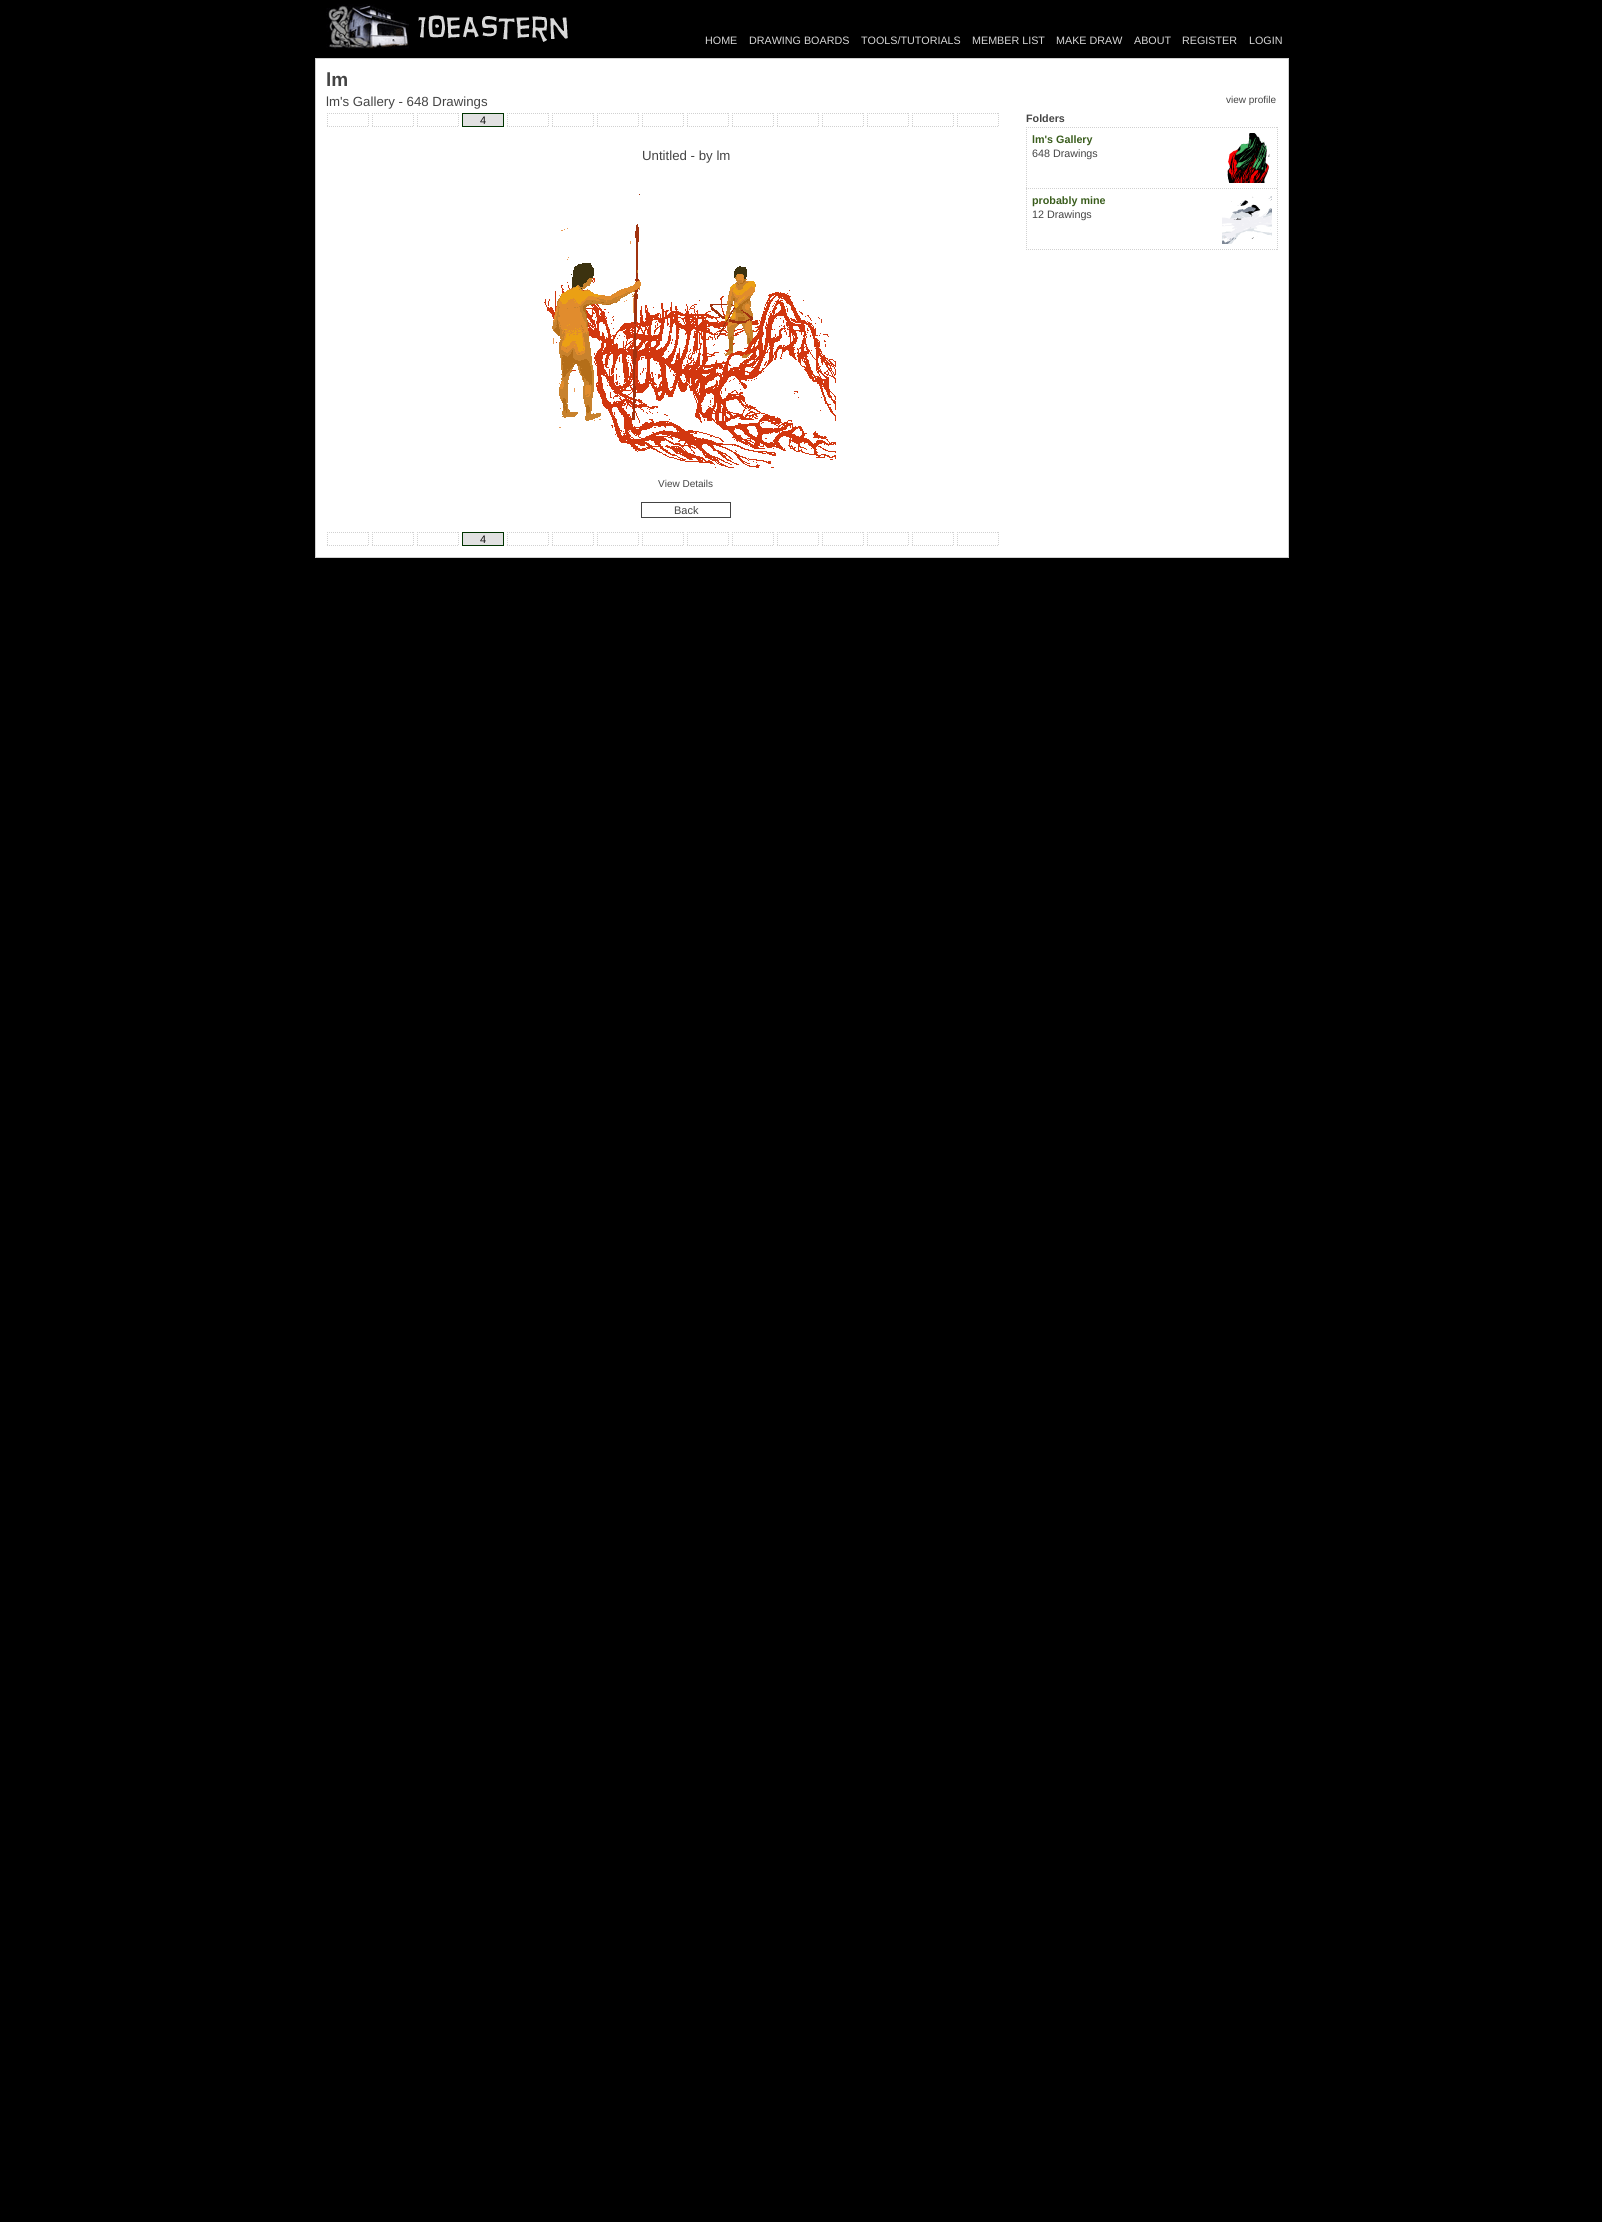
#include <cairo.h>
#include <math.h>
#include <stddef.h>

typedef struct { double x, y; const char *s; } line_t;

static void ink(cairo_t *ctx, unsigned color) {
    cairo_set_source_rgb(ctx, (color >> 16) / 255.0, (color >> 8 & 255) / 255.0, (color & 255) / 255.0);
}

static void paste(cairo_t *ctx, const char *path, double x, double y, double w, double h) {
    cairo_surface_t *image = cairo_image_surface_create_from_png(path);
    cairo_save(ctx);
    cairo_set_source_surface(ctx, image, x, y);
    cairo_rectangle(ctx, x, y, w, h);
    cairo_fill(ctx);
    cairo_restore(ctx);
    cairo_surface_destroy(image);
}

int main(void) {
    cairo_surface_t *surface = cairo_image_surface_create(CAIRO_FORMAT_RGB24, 1602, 2222);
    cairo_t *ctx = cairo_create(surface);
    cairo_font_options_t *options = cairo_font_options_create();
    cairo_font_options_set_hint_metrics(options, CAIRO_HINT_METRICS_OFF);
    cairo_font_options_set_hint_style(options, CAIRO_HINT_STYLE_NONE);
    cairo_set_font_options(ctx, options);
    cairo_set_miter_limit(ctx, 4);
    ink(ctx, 0x000000);
    cairo_paint(ctx);
    paste(ctx, "media/1.png", 326, 4, 242, 45);
    cairo_select_font_face(ctx, "Liberation Sans", CAIRO_FONT_SLANT_NORMAL, CAIRO_FONT_WEIGHT_NORMAL);
    cairo_set_font_size(ctx, 10.75);
    ink(ctx, 0xD7D7D7);
    {
        static const line_t items[] = {
            {705, 44, "HOME"},
            {749, 44, "DRAWING BOARDS"},
            {861, 44, "TOOLS/TUTORIALS"},
            {972, 44, "MEMBER LIST"},
            {1056, 44, "MAKE DRAW"},
            {1134, 44, "ABOUT"},
            {1182, 44, "REGISTER"},
            {1249, 44, "LOGIN"},
        };
        for (size_t i = 0; i < sizeof items / sizeof *items; i++) {
            cairo_move_to(ctx, items[i].x, items[i].y);
            cairo_show_text(ctx, items[i].s);
        }
    }
    ink(ctx, 0xFFFFFF);
    cairo_rectangle(ctx, 315.5, 58.5, 973, 499);
    cairo_fill_preserve(ctx);
    ink(ctx, 0xD1D1D1);
    cairo_set_line_width(ctx, 1);
    cairo_stroke(ctx);
    cairo_select_font_face(ctx, "Liberation Sans", CAIRO_FONT_SLANT_NORMAL, CAIRO_FONT_WEIGHT_BOLD);
    cairo_set_font_size(ctx, 19);
    ink(ctx, 0x444444);
    cairo_move_to(ctx, 326, 86);
    cairo_show_text(ctx, "lm");
    cairo_select_font_face(ctx, "Liberation Sans", CAIRO_FONT_SLANT_NORMAL, CAIRO_FONT_WEIGHT_NORMAL);
    cairo_set_font_size(ctx, 13.25);
    cairo_move_to(ctx, 326, 106);
    cairo_show_text(ctx, "lm's Gallery - 648 Drawings");
    cairo_set_font_size(ctx, 10);
    cairo_move_to(ctx, 1226, 103);
    cairo_show_text(ctx, "view profile");
    cairo_new_path(ctx);
    cairo_move_to(ctx, 327, 113.5);
    cairo_line_to(ctx, 369, 113.5);
    cairo_move_to(ctx, 368.5, 113);
    cairo_line_to(ctx, 368.5, 127);
    cairo_move_to(ctx, 327, 126.5);
    cairo_line_to(ctx, 369, 126.5);
    cairo_move_to(ctx, 327.5, 113);
    cairo_line_to(ctx, 327.5, 127);
    ink(ctx, 0xD1D1D1);
    cairo_set_dash(ctx, (double[]){1, 1}, 2, 0);
    cairo_stroke(ctx);
    cairo_new_path(ctx);
    cairo_move_to(ctx, 372, 113.5);
    cairo_line_to(ctx, 414, 113.5);
    cairo_move_to(ctx, 413.5, 113);
    cairo_line_to(ctx, 413.5, 127);
    cairo_move_to(ctx, 372, 126.5);
    cairo_line_to(ctx, 414, 126.5);
    cairo_move_to(ctx, 372.5, 113);
    cairo_line_to(ctx, 372.5, 127);
    cairo_stroke(ctx);
    cairo_new_path(ctx);
    cairo_move_to(ctx, 417, 113.5);
    cairo_line_to(ctx, 459, 113.5);
    cairo_move_to(ctx, 458.5, 113);
    cairo_line_to(ctx, 458.5, 127);
    cairo_move_to(ctx, 417, 126.5);
    cairo_line_to(ctx, 459, 126.5);
    cairo_move_to(ctx, 417.5, 113);
    cairo_line_to(ctx, 417.5, 127);
    cairo_stroke(ctx);
    ink(ctx, 0xE1E1E1);
    cairo_rectangle(ctx, 462.5, 113.5, 41, 13);
    cairo_fill_preserve(ctx);
    ink(ctx, 0x003300);
    cairo_set_dash(ctx, NULL, 0, 0);
    cairo_stroke(ctx);
    cairo_set_font_size(ctx, 11);
    ink(ctx, 0x111111);
    cairo_move_to(ctx, 480, 124);
    cairo_show_text(ctx, "4");
    cairo_new_path(ctx);
    cairo_move_to(ctx, 507, 113.5);
    cairo_line_to(ctx, 549, 113.5);
    cairo_move_to(ctx, 548.5, 113);
    cairo_line_to(ctx, 548.5, 127);
    cairo_move_to(ctx, 507, 126.5);
    cairo_line_to(ctx, 549, 126.5);
    cairo_move_to(ctx, 507.5, 113);
    cairo_line_to(ctx, 507.5, 127);
    ink(ctx, 0xD1D1D1);
    cairo_set_dash(ctx, (double[]){1, 1}, 2, 0);
    cairo_stroke(ctx);
    cairo_new_path(ctx);
    cairo_move_to(ctx, 552, 113.5);
    cairo_line_to(ctx, 594, 113.5);
    cairo_move_to(ctx, 593.5, 113);
    cairo_line_to(ctx, 593.5, 127);
    cairo_move_to(ctx, 552, 126.5);
    cairo_line_to(ctx, 594, 126.5);
    cairo_move_to(ctx, 552.5, 113);
    cairo_line_to(ctx, 552.5, 127);
    cairo_stroke(ctx);
    cairo_new_path(ctx);
    cairo_move_to(ctx, 597, 113.5);
    cairo_line_to(ctx, 639, 113.5);
    cairo_move_to(ctx, 638.5, 113);
    cairo_line_to(ctx, 638.5, 127);
    cairo_move_to(ctx, 597, 126.5);
    cairo_line_to(ctx, 639, 126.5);
    cairo_move_to(ctx, 597.5, 113);
    cairo_line_to(ctx, 597.5, 127);
    cairo_stroke(ctx);
    cairo_new_path(ctx);
    cairo_move_to(ctx, 642, 113.5);
    cairo_line_to(ctx, 684, 113.5);
    cairo_move_to(ctx, 683.5, 113);
    cairo_line_to(ctx, 683.5, 127);
    cairo_move_to(ctx, 642, 126.5);
    cairo_line_to(ctx, 684, 126.5);
    cairo_move_to(ctx, 642.5, 113);
    cairo_line_to(ctx, 642.5, 127);
    cairo_stroke(ctx);
    cairo_new_path(ctx);
    cairo_move_to(ctx, 687, 113.5);
    cairo_line_to(ctx, 729, 113.5);
    cairo_move_to(ctx, 728.5, 113);
    cairo_line_to(ctx, 728.5, 127);
    cairo_move_to(ctx, 687, 126.5);
    cairo_line_to(ctx, 729, 126.5);
    cairo_move_to(ctx, 687.5, 113);
    cairo_line_to(ctx, 687.5, 127);
    cairo_stroke(ctx);
    cairo_new_path(ctx);
    cairo_move_to(ctx, 732, 113.5);
    cairo_line_to(ctx, 774, 113.5);
    cairo_move_to(ctx, 773.5, 113);
    cairo_line_to(ctx, 773.5, 127);
    cairo_move_to(ctx, 732, 126.5);
    cairo_line_to(ctx, 774, 126.5);
    cairo_move_to(ctx, 732.5, 113);
    cairo_line_to(ctx, 732.5, 127);
    cairo_stroke(ctx);
    cairo_new_path(ctx);
    cairo_move_to(ctx, 777, 113.5);
    cairo_line_to(ctx, 819, 113.5);
    cairo_move_to(ctx, 818.5, 113);
    cairo_line_to(ctx, 818.5, 127);
    cairo_move_to(ctx, 777, 126.5);
    cairo_line_to(ctx, 819, 126.5);
    cairo_move_to(ctx, 777.5, 113);
    cairo_line_to(ctx, 777.5, 127);
    cairo_stroke(ctx);
    cairo_new_path(ctx);
    cairo_move_to(ctx, 822, 113.5);
    cairo_line_to(ctx, 864, 113.5);
    cairo_move_to(ctx, 863.5, 113);
    cairo_line_to(ctx, 863.5, 127);
    cairo_move_to(ctx, 822, 126.5);
    cairo_line_to(ctx, 864, 126.5);
    cairo_move_to(ctx, 822.5, 113);
    cairo_line_to(ctx, 822.5, 127);
    cairo_stroke(ctx);
    cairo_new_path(ctx);
    cairo_move_to(ctx, 867, 113.5);
    cairo_line_to(ctx, 909, 113.5);
    cairo_move_to(ctx, 908.5, 113);
    cairo_line_to(ctx, 908.5, 127);
    cairo_move_to(ctx, 867, 126.5);
    cairo_line_to(ctx, 909, 126.5);
    cairo_move_to(ctx, 867.5, 113);
    cairo_line_to(ctx, 867.5, 127);
    cairo_stroke(ctx);
    cairo_new_path(ctx);
    cairo_move_to(ctx, 912, 113.5);
    cairo_line_to(ctx, 954, 113.5);
    cairo_move_to(ctx, 953.5, 113);
    cairo_line_to(ctx, 953.5, 127);
    cairo_move_to(ctx, 912, 126.5);
    cairo_line_to(ctx, 954, 126.5);
    cairo_move_to(ctx, 912.5, 113);
    cairo_line_to(ctx, 912.5, 127);
    cairo_stroke(ctx);
    cairo_new_path(ctx);
    cairo_move_to(ctx, 957, 113.5);
    cairo_line_to(ctx, 999, 113.5);
    cairo_move_to(ctx, 998.5, 113);
    cairo_line_to(ctx, 998.5, 127);
    cairo_move_to(ctx, 957, 126.5);
    cairo_line_to(ctx, 999, 126.5);
    cairo_move_to(ctx, 957.5, 113);
    cairo_line_to(ctx, 957.5, 127);
    cairo_stroke(ctx);
    cairo_set_font_size(ctx, 13.25);
    ink(ctx, 0x444444);
    cairo_move_to(ctx, 642, 160);
    cairo_show_text(ctx, "Untitled - by lm");
    paste(ctx, "media/2.png", 544, 194, 292, 274);
    cairo_set_font_size(ctx, 10);
    cairo_move_to(ctx, 658, 487);
    cairo_show_text(ctx, "View Details");
    cairo_rectangle(ctx, 641.5, 502.5, 89, 15);
    cairo_set_dash(ctx, NULL, 0, 0);
    cairo_stroke(ctx);
    cairo_set_font_size(ctx, 11);
    cairo_move_to(ctx, 674, 514);
    cairo_show_text(ctx, "Back");
    cairo_new_path(ctx);
    cairo_move_to(ctx, 327, 532.5);
    cairo_line_to(ctx, 369, 532.5);
    cairo_move_to(ctx, 368.5, 532);
    cairo_line_to(ctx, 368.5, 546);
    cairo_move_to(ctx, 327, 545.5);
    cairo_line_to(ctx, 369, 545.5);
    cairo_move_to(ctx, 327.5, 532);
    cairo_line_to(ctx, 327.5, 546);
    ink(ctx, 0xD1D1D1);
    cairo_set_dash(ctx, (double[]){1, 1}, 2, 0);
    cairo_stroke(ctx);
    cairo_new_path(ctx);
    cairo_move_to(ctx, 372, 532.5);
    cairo_line_to(ctx, 414, 532.5);
    cairo_move_to(ctx, 413.5, 532);
    cairo_line_to(ctx, 413.5, 546);
    cairo_move_to(ctx, 372, 545.5);
    cairo_line_to(ctx, 414, 545.5);
    cairo_move_to(ctx, 372.5, 532);
    cairo_line_to(ctx, 372.5, 546);
    cairo_stroke(ctx);
    cairo_new_path(ctx);
    cairo_move_to(ctx, 417, 532.5);
    cairo_line_to(ctx, 459, 532.5);
    cairo_move_to(ctx, 458.5, 532);
    cairo_line_to(ctx, 458.5, 546);
    cairo_move_to(ctx, 417, 545.5);
    cairo_line_to(ctx, 459, 545.5);
    cairo_move_to(ctx, 417.5, 532);
    cairo_line_to(ctx, 417.5, 546);
    cairo_stroke(ctx);
    ink(ctx, 0xE1E1E1);
    cairo_rectangle(ctx, 462.5, 532.5, 41, 13);
    cairo_fill_preserve(ctx);
    ink(ctx, 0x003300);
    cairo_set_dash(ctx, NULL, 0, 0);
    cairo_stroke(ctx);
    ink(ctx, 0x111111);
    cairo_move_to(ctx, 480, 543);
    cairo_show_text(ctx, "4");
    cairo_new_path(ctx);
    cairo_move_to(ctx, 507, 532.5);
    cairo_line_to(ctx, 549, 532.5);
    cairo_move_to(ctx, 548.5, 532);
    cairo_line_to(ctx, 548.5, 546);
    cairo_move_to(ctx, 507, 545.5);
    cairo_line_to(ctx, 549, 545.5);
    cairo_move_to(ctx, 507.5, 532);
    cairo_line_to(ctx, 507.5, 546);
    ink(ctx, 0xD1D1D1);
    cairo_set_dash(ctx, (double[]){1, 1}, 2, 0);
    cairo_stroke(ctx);
    cairo_new_path(ctx);
    cairo_move_to(ctx, 552, 532.5);
    cairo_line_to(ctx, 594, 532.5);
    cairo_move_to(ctx, 593.5, 532);
    cairo_line_to(ctx, 593.5, 546);
    cairo_move_to(ctx, 552, 545.5);
    cairo_line_to(ctx, 594, 545.5);
    cairo_move_to(ctx, 552.5, 532);
    cairo_line_to(ctx, 552.5, 546);
    cairo_stroke(ctx);
    cairo_new_path(ctx);
    cairo_move_to(ctx, 597, 532.5);
    cairo_line_to(ctx, 639, 532.5);
    cairo_move_to(ctx, 638.5, 532);
    cairo_line_to(ctx, 638.5, 546);
    cairo_move_to(ctx, 597, 545.5);
    cairo_line_to(ctx, 639, 545.5);
    cairo_move_to(ctx, 597.5, 532);
    cairo_line_to(ctx, 597.5, 546);
    cairo_stroke(ctx);
    cairo_new_path(ctx);
    cairo_move_to(ctx, 642, 532.5);
    cairo_line_to(ctx, 684, 532.5);
    cairo_move_to(ctx, 683.5, 532);
    cairo_line_to(ctx, 683.5, 546);
    cairo_move_to(ctx, 642, 545.5);
    cairo_line_to(ctx, 684, 545.5);
    cairo_move_to(ctx, 642.5, 532);
    cairo_line_to(ctx, 642.5, 546);
    cairo_stroke(ctx);
    cairo_new_path(ctx);
    cairo_move_to(ctx, 687, 532.5);
    cairo_line_to(ctx, 729, 532.5);
    cairo_move_to(ctx, 728.5, 532);
    cairo_line_to(ctx, 728.5, 546);
    cairo_move_to(ctx, 687, 545.5);
    cairo_line_to(ctx, 729, 545.5);
    cairo_move_to(ctx, 687.5, 532);
    cairo_line_to(ctx, 687.5, 546);
    cairo_stroke(ctx);
    cairo_new_path(ctx);
    cairo_move_to(ctx, 732, 532.5);
    cairo_line_to(ctx, 774, 532.5);
    cairo_move_to(ctx, 773.5, 532);
    cairo_line_to(ctx, 773.5, 546);
    cairo_move_to(ctx, 732, 545.5);
    cairo_line_to(ctx, 774, 545.5);
    cairo_move_to(ctx, 732.5, 532);
    cairo_line_to(ctx, 732.5, 546);
    cairo_stroke(ctx);
    cairo_new_path(ctx);
    cairo_move_to(ctx, 777, 532.5);
    cairo_line_to(ctx, 819, 532.5);
    cairo_move_to(ctx, 818.5, 532);
    cairo_line_to(ctx, 818.5, 546);
    cairo_move_to(ctx, 777, 545.5);
    cairo_line_to(ctx, 819, 545.5);
    cairo_move_to(ctx, 777.5, 532);
    cairo_line_to(ctx, 777.5, 546);
    cairo_stroke(ctx);
    cairo_new_path(ctx);
    cairo_move_to(ctx, 822, 532.5);
    cairo_line_to(ctx, 864, 532.5);
    cairo_move_to(ctx, 863.5, 532);
    cairo_line_to(ctx, 863.5, 546);
    cairo_move_to(ctx, 822, 545.5);
    cairo_line_to(ctx, 864, 545.5);
    cairo_move_to(ctx, 822.5, 532);
    cairo_line_to(ctx, 822.5, 546);
    cairo_stroke(ctx);
    cairo_new_path(ctx);
    cairo_move_to(ctx, 867, 532.5);
    cairo_line_to(ctx, 909, 532.5);
    cairo_move_to(ctx, 908.5, 532);
    cairo_line_to(ctx, 908.5, 546);
    cairo_move_to(ctx, 867, 545.5);
    cairo_line_to(ctx, 909, 545.5);
    cairo_move_to(ctx, 867.5, 532);
    cairo_line_to(ctx, 867.5, 546);
    cairo_stroke(ctx);
    cairo_new_path(ctx);
    cairo_move_to(ctx, 912, 532.5);
    cairo_line_to(ctx, 954, 532.5);
    cairo_move_to(ctx, 953.5, 532);
    cairo_line_to(ctx, 953.5, 546);
    cairo_move_to(ctx, 912, 545.5);
    cairo_line_to(ctx, 954, 545.5);
    cairo_move_to(ctx, 912.5, 532);
    cairo_line_to(ctx, 912.5, 546);
    cairo_stroke(ctx);
    cairo_new_path(ctx);
    cairo_move_to(ctx, 957, 532.5);
    cairo_line_to(ctx, 999, 532.5);
    cairo_move_to(ctx, 998.5, 532);
    cairo_line_to(ctx, 998.5, 546);
    cairo_move_to(ctx, 957, 545.5);
    cairo_line_to(ctx, 999, 545.5);
    cairo_move_to(ctx, 957.5, 532);
    cairo_line_to(ctx, 957.5, 546);
    cairo_stroke(ctx);
    cairo_select_font_face(ctx, "Liberation Sans", CAIRO_FONT_SLANT_NORMAL, CAIRO_FONT_WEIGHT_BOLD);
    cairo_set_font_size(ctx, 10.75);
    ink(ctx, 0x444444);
    cairo_move_to(ctx, 1026, 122);
    cairo_show_text(ctx, "Folders");
    cairo_new_path(ctx);
    cairo_move_to(ctx, 1026, 127.5);
    cairo_line_to(ctx, 1278, 127.5);
    ink(ctx, 0xD1D1D1);
    cairo_stroke(ctx);
    cairo_new_path(ctx);
    cairo_move_to(ctx, 1277.5, 127);
    cairo_line_to(ctx, 1277.5, 189);
    cairo_stroke(ctx);
    cairo_new_path(ctx);
    cairo_move_to(ctx, 1026, 188.5);
    cairo_line_to(ctx, 1278, 188.5);
    cairo_stroke(ctx);
    cairo_new_path(ctx);
    cairo_move_to(ctx, 1026.5, 127);
    cairo_line_to(ctx, 1026.5, 189);
    cairo_stroke(ctx);
    ink(ctx, 0x3A5D1D);
    cairo_move_to(ctx, 1032, 143);
    cairo_show_text(ctx, "lm's Gallery");
    cairo_select_font_face(ctx, "Liberation Sans", CAIRO_FONT_SLANT_NORMAL, CAIRO_FONT_WEIGHT_NORMAL);
    ink(ctx, 0x444444);
    cairo_move_to(ctx, 1032, 157);
    cairo_show_text(ctx, "648 Drawings");
    paste(ctx, "media/3.png", 1227, 133, 43, 50);
    cairo_new_path(ctx);
    cairo_move_to(ctx, 1277.5, 189);
    cairo_line_to(ctx, 1277.5, 250);
    ink(ctx, 0xD1D1D1);
    cairo_stroke(ctx);
    cairo_new_path(ctx);
    cairo_move_to(ctx, 1026, 249.5);
    cairo_line_to(ctx, 1278, 249.5);
    cairo_stroke(ctx);
    cairo_new_path(ctx);
    cairo_move_to(ctx, 1026.5, 189);
    cairo_line_to(ctx, 1026.5, 250);
    cairo_stroke(ctx);
    cairo_select_font_face(ctx, "Liberation Sans", CAIRO_FONT_SLANT_NORMAL, CAIRO_FONT_WEIGHT_BOLD);
    ink(ctx, 0x3A5D1D);
    cairo_move_to(ctx, 1032, 204);
    cairo_show_text(ctx, "probably mine");
    cairo_select_font_face(ctx, "Liberation Sans", CAIRO_FONT_SLANT_NORMAL, CAIRO_FONT_WEIGHT_NORMAL);
    ink(ctx, 0x444444);
    cairo_move_to(ctx, 1032, 218);
    cairo_show_text(ctx, "12 Drawings");
    paste(ctx, "media/4.png", 1222, 196, 50, 48);
    cairo_surface_write_to_png(surface, "image.png");
    cairo_font_options_destroy(options);
    cairo_destroy(ctx);
    cairo_surface_destroy(surface);
    return 0;
}
